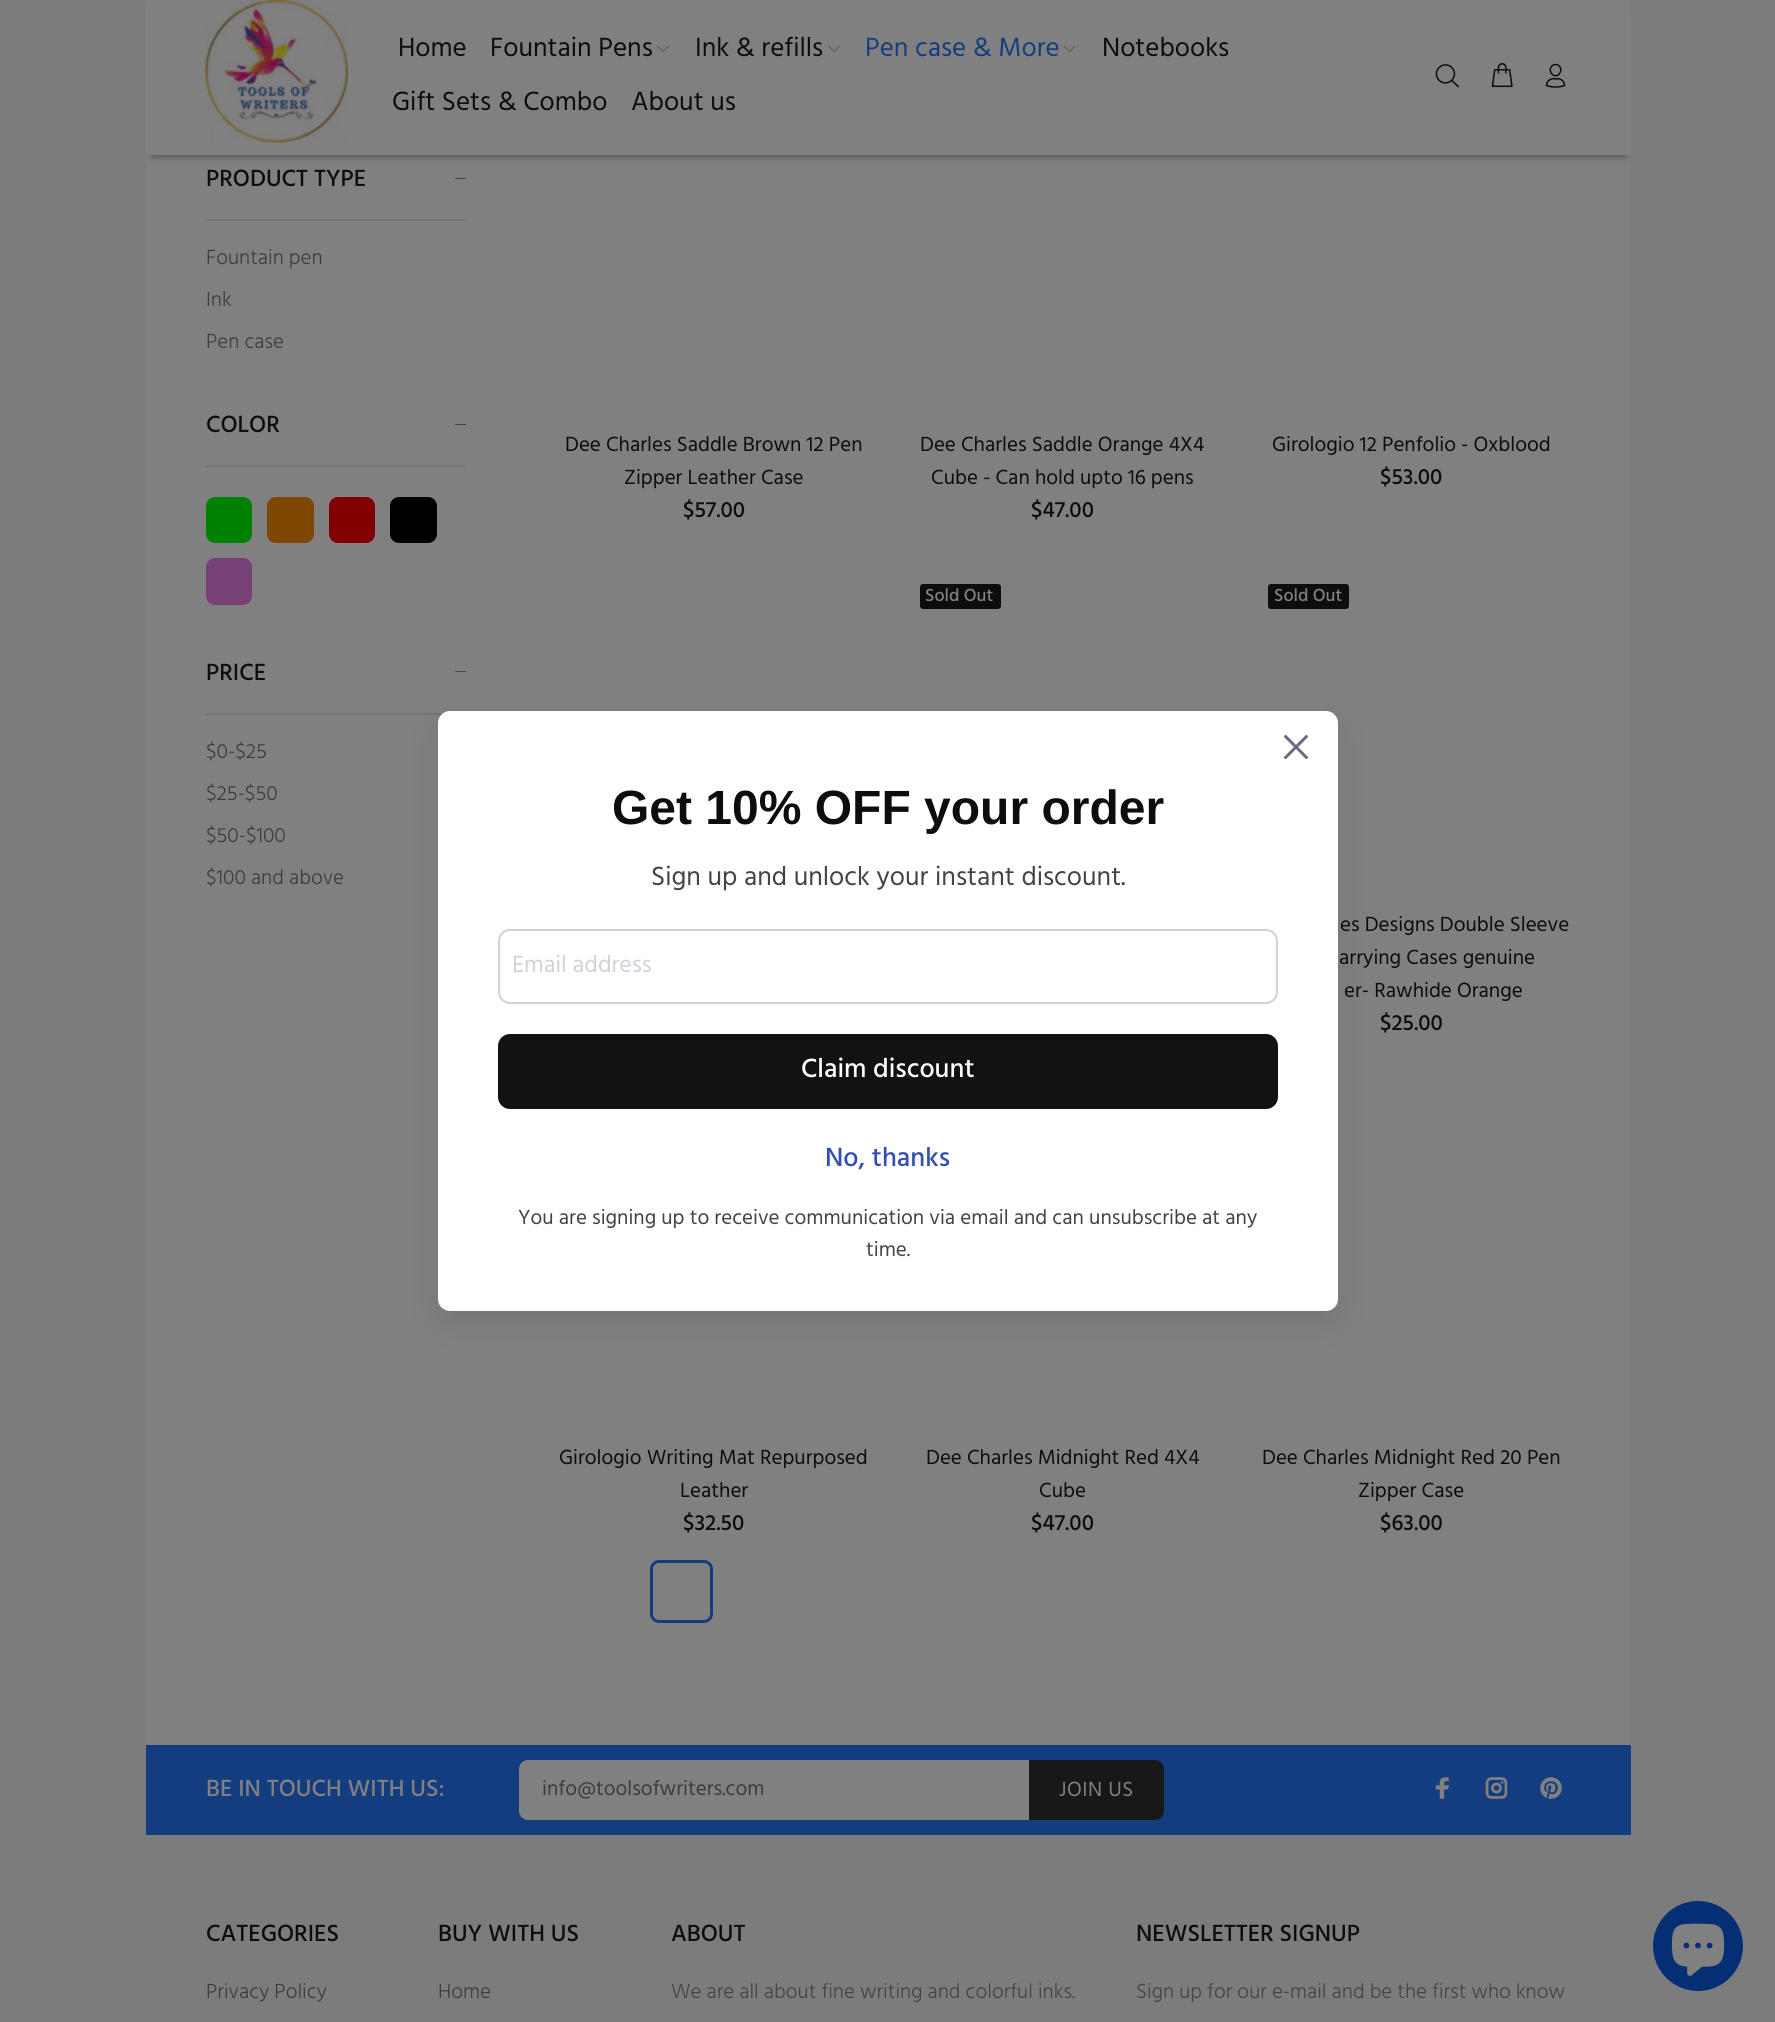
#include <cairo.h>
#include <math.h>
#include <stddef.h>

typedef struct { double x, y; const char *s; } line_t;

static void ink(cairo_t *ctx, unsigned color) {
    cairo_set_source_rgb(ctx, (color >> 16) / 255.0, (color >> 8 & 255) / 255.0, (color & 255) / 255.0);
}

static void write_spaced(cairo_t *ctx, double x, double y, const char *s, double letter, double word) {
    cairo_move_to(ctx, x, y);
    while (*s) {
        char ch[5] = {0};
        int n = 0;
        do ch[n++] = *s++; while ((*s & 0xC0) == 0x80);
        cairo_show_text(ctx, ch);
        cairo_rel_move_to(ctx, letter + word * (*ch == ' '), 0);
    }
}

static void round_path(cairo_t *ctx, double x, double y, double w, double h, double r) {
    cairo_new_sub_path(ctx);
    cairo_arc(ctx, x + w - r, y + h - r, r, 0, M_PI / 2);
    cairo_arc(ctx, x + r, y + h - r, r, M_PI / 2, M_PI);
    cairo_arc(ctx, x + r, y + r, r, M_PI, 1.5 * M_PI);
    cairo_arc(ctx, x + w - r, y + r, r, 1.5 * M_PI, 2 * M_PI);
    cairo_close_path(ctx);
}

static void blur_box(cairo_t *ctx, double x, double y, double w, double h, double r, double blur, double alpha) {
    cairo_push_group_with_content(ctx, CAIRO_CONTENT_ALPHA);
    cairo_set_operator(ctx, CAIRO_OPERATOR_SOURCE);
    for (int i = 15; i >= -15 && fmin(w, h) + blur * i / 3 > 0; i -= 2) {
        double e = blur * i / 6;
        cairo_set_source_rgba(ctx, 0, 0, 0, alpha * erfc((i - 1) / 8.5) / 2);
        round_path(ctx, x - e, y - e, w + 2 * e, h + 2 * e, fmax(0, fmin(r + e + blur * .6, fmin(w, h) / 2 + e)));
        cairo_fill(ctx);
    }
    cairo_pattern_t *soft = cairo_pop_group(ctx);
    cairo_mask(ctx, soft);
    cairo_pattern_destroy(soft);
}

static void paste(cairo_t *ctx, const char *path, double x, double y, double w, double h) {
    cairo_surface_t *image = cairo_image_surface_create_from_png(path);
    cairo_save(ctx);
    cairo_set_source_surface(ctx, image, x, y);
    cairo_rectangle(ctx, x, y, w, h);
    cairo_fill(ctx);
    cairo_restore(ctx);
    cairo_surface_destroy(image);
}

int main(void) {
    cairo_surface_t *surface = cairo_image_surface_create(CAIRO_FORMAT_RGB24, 1775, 2022);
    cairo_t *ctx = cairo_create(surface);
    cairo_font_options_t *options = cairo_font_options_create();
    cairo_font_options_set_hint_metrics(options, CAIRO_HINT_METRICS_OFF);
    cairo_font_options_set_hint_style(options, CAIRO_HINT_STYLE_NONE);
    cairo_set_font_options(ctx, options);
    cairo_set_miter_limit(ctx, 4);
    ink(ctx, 0x7C7C7D);
    cairo_paint(ctx);
    ink(ctx, 0x808080);
    cairo_rectangle(ctx, 146, 155, 1485, 1590);
    cairo_fill(ctx);
    ink(ctx, 0x000000);
    blur_box(ctx, 152, 14, 1473, 142, 0, 4, 0.45);
    ink(ctx, 0x808080);
    cairo_rectangle(ctx, 146, 0, 1485, 155);
    cairo_fill(ctx);
    paste(ctx, "media/1.png", 205, 0, 143, 143);
    cairo_select_font_face(ctx, "Hind", CAIRO_FONT_SLANT_NORMAL, CAIRO_FONT_WEIGHT_NORMAL);
    cairo_set_font_size(ctx, 27);
    ink(ctx, 0x0D0D0D);
    cairo_move_to(ctx, 398, 56);
    cairo_show_text(ctx, "Home");
    cairo_move_to(ctx, 490, 56);
    cairo_show_text(ctx, "Fountain Pens");
    paste(ctx, "media/2.png", 657, 46, 12, 6);
    cairo_move_to(ctx, 695, 56);
    cairo_show_text(ctx, "Ink & refills");
    paste(ctx, "media/2.png", 828, 46, 12, 6);
    ink(ctx, 0x143D7F);
    cairo_move_to(ctx, 865, 56);
    cairo_show_text(ctx, "Pen case & More");
    paste(ctx, "media/3.png", 1063, 46, 13, 6);
    ink(ctx, 0x0D0D0D);
    {
        static const line_t items[] = {
            {1102, 56, "Notebooks"},
            {392, 110, "Gift Sets & Combo"},
            {631, 110, "About us"},
        };
        for (size_t i = 0; i < sizeof items / sizeof *items; i++) {
            cairo_move_to(ctx, items[i].x, items[i].y);
            cairo_show_text(ctx, items[i].s);
        }
    }
    paste(ctx, "media/4.png", 1435, 64, 24, 24);
    paste(ctx, "media/5.png", 1491, 63, 22, 25);
    paste(ctx, "media/6.png", 1545, 63, 21, 25);
    ink(ctx, 0x757474);
    cairo_rectangle(ctx, 206, 219, 259, 2);
    cairo_fill(ctx);
    cairo_select_font_face(ctx, "Hind Medium", CAIRO_FONT_SLANT_NORMAL, CAIRO_FONT_WEIGHT_NORMAL);
    cairo_set_font_size(ctx, 24);
    ink(ctx, 0x0D0D0D);
    cairo_move_to(ctx, 206, 186);
    cairo_show_text(ctx, "PRODUCT TYPE");
    cairo_new_path(ctx);
    cairo_move_to(ctx, 466, 178);
    cairo_line_to(ctx, 466, 178.5);
    cairo_line_to(ctx, 455, 178.5);
    cairo_line_to(ctx, 455.5, 178);
    cairo_close_path(ctx);
    cairo_fill(ctx);
    cairo_select_font_face(ctx, "Hind Light", CAIRO_FONT_SLANT_NORMAL, CAIRO_FONT_WEIGHT_NORMAL);
    cairo_set_font_size(ctx, 21);
    ink(ctx, 0x3C3C3C);
    {
        static const line_t items[] = {
            {206, 264, "Fountain pen"},
            {206, 306, "Ink"},
            {206, 348, "Pen case"},
        };
        for (size_t i = 0; i < sizeof items / sizeof *items; i++) {
            cairo_move_to(ctx, items[i].x, items[i].y);
            cairo_show_text(ctx, items[i].s);
        }
    }
    ink(ctx, 0x757474);
    cairo_rectangle(ctx, 206, 465, 259, 2);
    cairo_fill(ctx);
    cairo_select_font_face(ctx, "Hind Medium", CAIRO_FONT_SLANT_NORMAL, CAIRO_FONT_WEIGHT_NORMAL);
    cairo_set_font_size(ctx, 24);
    ink(ctx, 0x0D0D0D);
    cairo_move_to(ctx, 206, 432);
    cairo_show_text(ctx, "COLOR");
    cairo_new_path(ctx);
    cairo_move_to(ctx, 466, 424);
    cairo_line_to(ctx, 466, 424.5);
    cairo_line_to(ctx, 455, 424.5);
    cairo_line_to(ctx, 455.5, 424);
    cairo_close_path(ctx);
    cairo_fill(ctx);
    ink(ctx, 0x008000);
    round_path(ctx, 206, 497, 46, 46, 9);
    cairo_fill(ctx);
    ink(ctx, 0x7F4801);
    round_path(ctx, 267, 497, 47, 46, 9);
    cairo_fill(ctx);
    ink(ctx, 0x800000);
    round_path(ctx, 329, 497, 46, 46, 9);
    cairo_fill(ctx);
    ink(ctx, 0x000000);
    round_path(ctx, 390, 497, 47, 46, 9);
    cairo_fill(ctx);
    ink(ctx, 0x774177);
    round_path(ctx, 206, 558, 46, 47, 9);
    cairo_fill(ctx);
    ink(ctx, 0x757474);
    cairo_rectangle(ctx, 206, 713, 238, 2);
    cairo_fill(ctx);
    ink(ctx, 0x0D0D0D);
    cairo_move_to(ctx, 206, 680);
    cairo_show_text(ctx, "PRICE");
    cairo_new_path(ctx);
    cairo_move_to(ctx, 466, 671.5);
    cairo_line_to(ctx, 466, 672);
    cairo_line_to(ctx, 455, 672);
    cairo_line_to(ctx, 455.5, 671.5);
    cairo_close_path(ctx);
    cairo_fill(ctx);
    cairo_select_font_face(ctx, "Hind Light", CAIRO_FONT_SLANT_NORMAL, CAIRO_FONT_WEIGHT_NORMAL);
    cairo_set_font_size(ctx, 21);
    ink(ctx, 0x3C3C3C);
    {
        static const line_t items[] = {
            {206, 758, "$0-$25"},
            {206, 800, "$25-$50"},
            {206, 842, "$50-$100"},
            {206, 884, "$100 and above"},
        };
        for (size_t i = 0; i < sizeof items / sizeof *items; i++) {
            cairo_move_to(ctx, items[i].x, items[i].y);
            cairo_show_text(ctx, items[i].s);
        }
    }
    cairo_select_font_face(ctx, "Hind", CAIRO_FONT_SLANT_NORMAL, CAIRO_FONT_WEIGHT_NORMAL);
    ink(ctx, 0x0D0D0D);
    cairo_move_to(ctx, 565, 451);
    cairo_show_text(ctx, "Dee Charles Saddle Brown 12 Pen");
    cairo_move_to(ctx, 624, 484);
    cairo_show_text(ctx, "Zipper Leather Case");
    cairo_select_font_face(ctx, "Hind Medium", CAIRO_FONT_SLANT_NORMAL, CAIRO_FONT_WEIGHT_NORMAL);
    cairo_set_font_size(ctx, 22.5);
    cairo_move_to(ctx, 683, 517);
    cairo_show_text(ctx, "$57.00");
    cairo_select_font_face(ctx, "Hind", CAIRO_FONT_SLANT_NORMAL, CAIRO_FONT_WEIGHT_NORMAL);
    cairo_set_font_size(ctx, 21);
    cairo_move_to(ctx, 920, 451);
    cairo_show_text(ctx, "Dee Charles Saddle Orange 4X4");
    cairo_move_to(ctx, 931, 484);
    cairo_show_text(ctx, "Cube - Can hold upto 16 pens");
    cairo_select_font_face(ctx, "Hind Medium", CAIRO_FONT_SLANT_NORMAL, CAIRO_FONT_WEIGHT_NORMAL);
    cairo_set_font_size(ctx, 22.5);
    cairo_move_to(ctx, 1031, 517);
    cairo_show_text(ctx, "$47.00");
    cairo_select_font_face(ctx, "Hind", CAIRO_FONT_SLANT_NORMAL, CAIRO_FONT_WEIGHT_NORMAL);
    cairo_set_font_size(ctx, 21);
    cairo_move_to(ctx, 1272, 451);
    cairo_show_text(ctx, "Girologio 12 Penfolio - Oxblood");
    cairo_select_font_face(ctx, "Hind Medium", CAIRO_FONT_SLANT_NORMAL, CAIRO_FONT_WEIGHT_NORMAL);
    cairo_set_font_size(ctx, 22.5);
    cairo_move_to(ctx, 1380, 484);
    cairo_show_text(ctx, "$53.00");
    round_path(ctx, 920, 584, 81, 25, 3);
    cairo_fill(ctx);
    cairo_set_font_size(ctx, 18);
    ink(ctx, 0x808080);
    cairo_move_to(ctx, 925, 601);
    cairo_show_text(ctx, "Sold Out");
    ink(ctx, 0x0D0D0D);
    round_path(ctx, 1268, 584, 81, 25, 3);
    cairo_fill(ctx);
    ink(ctx, 0x808080);
    cairo_move_to(ctx, 1274, 601);
    cairo_show_text(ctx, "Sold Out");
    cairo_select_font_face(ctx, "Hind", CAIRO_FONT_SLANT_NORMAL, CAIRO_FONT_WEIGHT_NORMAL);
    cairo_set_font_size(ctx, 21);
    ink(ctx, 0x0D0D0D);
    {
        static const line_t items[] = {
            {1340, 931, "es Designs Double Sleeve"},
            {1339, 964, "arrying Cases genuine"},
            {1344, 997, "er- Rawhide Orange"},
        };
        for (size_t i = 0; i < sizeof items / sizeof *items; i++) {
            cairo_move_to(ctx, items[i].x, items[i].y);
            cairo_show_text(ctx, items[i].s);
        }
    }
    cairo_select_font_face(ctx, "Hind Medium", CAIRO_FONT_SLANT_NORMAL, CAIRO_FONT_WEIGHT_NORMAL);
    cairo_set_font_size(ctx, 22.5);
    cairo_move_to(ctx, 1380, 1030);
    cairo_show_text(ctx, "$25.00");
    cairo_select_font_face(ctx, "Hind", CAIRO_FONT_SLANT_NORMAL, CAIRO_FONT_WEIGHT_NORMAL);
    cairo_set_font_size(ctx, 21);
    cairo_move_to(ctx, 559, 1464);
    cairo_show_text(ctx, "Girologio Writing Mat Repurposed");
    cairo_move_to(ctx, 680, 1497);
    cairo_show_text(ctx, "Leather");
    cairo_select_font_face(ctx, "Hind Medium", CAIRO_FONT_SLANT_NORMAL, CAIRO_FONT_WEIGHT_NORMAL);
    cairo_set_font_size(ctx, 22.5);
    cairo_move_to(ctx, 683, 1530);
    cairo_show_text(ctx, "$32.50");
    round_path(ctx, 651.5, 1561.5, 60, 60, 7.5);
    ink(ctx, 0x143D7F);
    cairo_set_line_width(ctx, 3);
    cairo_stroke(ctx);
    cairo_select_font_face(ctx, "Hind", CAIRO_FONT_SLANT_NORMAL, CAIRO_FONT_WEIGHT_NORMAL);
    cairo_set_font_size(ctx, 21);
    ink(ctx, 0x0D0D0D);
    cairo_move_to(ctx, 926, 1464);
    cairo_show_text(ctx, "Dee Charles Midnight Red 4X4");
    cairo_move_to(ctx, 1039, 1497);
    cairo_show_text(ctx, "Cube");
    cairo_select_font_face(ctx, "Hind Medium", CAIRO_FONT_SLANT_NORMAL, CAIRO_FONT_WEIGHT_NORMAL);
    cairo_set_font_size(ctx, 22.5);
    cairo_move_to(ctx, 1031, 1530);
    cairo_show_text(ctx, "$47.00");
    cairo_select_font_face(ctx, "Hind", CAIRO_FONT_SLANT_NORMAL, CAIRO_FONT_WEIGHT_NORMAL);
    cairo_set_font_size(ctx, 21);
    cairo_move_to(ctx, 1262, 1464);
    cairo_show_text(ctx, "Dee Charles Midnight Red 20 Pen");
    cairo_move_to(ctx, 1358, 1497);
    cairo_show_text(ctx, "Zipper Case");
    cairo_select_font_face(ctx, "Hind Medium", CAIRO_FONT_SLANT_NORMAL, CAIRO_FONT_WEIGHT_NORMAL);
    cairo_set_font_size(ctx, 22.5);
    cairo_move_to(ctx, 1380, 1530);
    cairo_show_text(ctx, "$63.00");
    ink(ctx, 0x121127);
    blur_box(ctx, 438, 723, 900, 600, 12, 15, 0.1);
    ink(ctx, 0xFFFFFF);
    round_path(ctx, 438, 711, 900, 600, 12);
    cairo_fill(ctx);
    paste(ctx, "media/7.png", 1284, 735, 24, 24);
    cairo_select_font_face(ctx, "Liberation Sans", CAIRO_FONT_SLANT_NORMAL, CAIRO_FONT_WEIGHT_BOLD);
    cairo_set_font_size(ctx, 48);
    ink(ctx, 0x0D0D0D);
    cairo_move_to(ctx, 612, 824);
    cairo_show_text(ctx, "Get 10% OFF your order");
    cairo_select_font_face(ctx, "Hind", CAIRO_FONT_SLANT_NORMAL, CAIRO_FONT_WEIGHT_NORMAL);
    cairo_set_font_size(ctx, 27);
    ink(ctx, 0x444444);
    cairo_move_to(ctx, 651, 885);
    cairo_show_text(ctx, "Sign up and unlock your instant discount.");
    round_path(ctx, 499, 930, 778, 73, 11);
    ink(ctx, 0xD1D1DB);
    cairo_set_line_width(ctx, 2);
    cairo_stroke(ctx);
    cairo_set_font_size(ctx, 24);
    cairo_move_to(ctx, 512, 972);
    cairo_show_text(ctx, "Email address");
    ink(ctx, 0x121212);
    round_path(ctx, 498, 1034, 780, 75, 12);
    cairo_fill(ctx);
    cairo_select_font_face(ctx, "Hind Medium", CAIRO_FONT_SLANT_NORMAL, CAIRO_FONT_WEIGHT_NORMAL);
    cairo_set_font_size(ctx, 27);
    ink(ctx, 0xFFFFFF);
    cairo_move_to(ctx, 801, 1077);
    cairo_show_text(ctx, "Claim discount");
    ink(ctx, 0x334FB4);
    cairo_move_to(ctx, 825, 1166);
    cairo_show_text(ctx, "No, thanks");
    cairo_select_font_face(ctx, "Hind", CAIRO_FONT_SLANT_NORMAL, CAIRO_FONT_WEIGHT_NORMAL);
    cairo_set_font_size(ctx, 21);
    ink(ctx, 0x444444);
    cairo_move_to(ctx, 518, 1224);
    cairo_show_text(ctx, "You are signing up to receive communication via email and can unsubscribe at any");
    cairo_move_to(ctx, 866, 1256);
    cairo_show_text(ctx, "time.");
    ink(ctx, 0x143D7F);
    cairo_rectangle(ctx, 146, 1745, 1485, 90);
    cairo_fill(ctx);
    cairo_select_font_face(ctx, "Hind Medium", CAIRO_FONT_SLANT_NORMAL, CAIRO_FONT_WEIGHT_NORMAL);
    cairo_set_font_size(ctx, 24);
    ink(ctx, 0x808080);
    cairo_move_to(ctx, 206, 1796);
    cairo_show_text(ctx, "BE IN TOUCH WITH US:");
    cairo_new_path(ctx);
    cairo_move_to(ctx, 528, 1760);
    cairo_line_to(ctx, 1029, 1760);
    cairo_line_to(ctx, 1029, 1820);
    cairo_line_to(ctx, 528, 1820);
    cairo_curve_to(ctx, 523, 1820, 519, 1816, 519, 1811);
    cairo_line_to(ctx, 519, 1769);
    cairo_curve_to(ctx, 519, 1764, 523, 1760, 528, 1760);
    cairo_close_path(ctx);
    cairo_fill(ctx);
    cairo_select_font_face(ctx, "Hind", CAIRO_FONT_SLANT_NORMAL, CAIRO_FONT_WEIGHT_NORMAL);
    cairo_set_font_size(ctx, 21);
    ink(ctx, 0x3C3C3C);
    cairo_move_to(ctx, 542, 1795);
    cairo_show_text(ctx, "info@toolsofwriters.com");
    ink(ctx, 0x181818);
    cairo_new_path(ctx);
    cairo_move_to(ctx, 1029, 1760);
    cairo_line_to(ctx, 1155, 1760);
    cairo_curve_to(ctx, 1160, 1760, 1164, 1764, 1164, 1769);
    cairo_line_to(ctx, 1164, 1811);
    cairo_curve_to(ctx, 1164, 1816, 1160, 1820, 1155, 1820);
    cairo_line_to(ctx, 1029, 1820);
    cairo_close_path(ctx);
    cairo_fill(ctx);
    ink(ctx, 0x808080);
    write_spaced(ctx, 1059, 1796, "JOIN US", 0.5, 0);
    paste(ctx, "media/8.png", 1435, 1777, 15, 22);
    paste(ctx, "media/9.png", 1485, 1777, 23, 22);
    paste(ctx, "media/10.png", 1540, 1777, 22, 22);
    cairo_select_font_face(ctx, "Hind Medium", CAIRO_FONT_SLANT_NORMAL, CAIRO_FONT_WEIGHT_NORMAL);
    cairo_set_font_size(ctx, 24);
    ink(ctx, 0x0D0D0D);
    cairo_move_to(ctx, 206, 1941);
    cairo_show_text(ctx, "CATEGORIES");
    cairo_select_font_face(ctx, "Hind Light", CAIRO_FONT_SLANT_NORMAL, CAIRO_FONT_WEIGHT_NORMAL);
    cairo_set_font_size(ctx, 21);
    ink(ctx, 0x3C3C3C);
    cairo_move_to(ctx, 206, 1998);
    cairo_show_text(ctx, "Privacy Policy");
    cairo_select_font_face(ctx, "Hind Medium", CAIRO_FONT_SLANT_NORMAL, CAIRO_FONT_WEIGHT_NORMAL);
    cairo_set_font_size(ctx, 24);
    ink(ctx, 0x0D0D0D);
    cairo_move_to(ctx, 438, 1941);
    cairo_show_text(ctx, "BUY WITH US");
    cairo_select_font_face(ctx, "Hind Light", CAIRO_FONT_SLANT_NORMAL, CAIRO_FONT_WEIGHT_NORMAL);
    cairo_set_font_size(ctx, 21);
    ink(ctx, 0x3C3C3C);
    cairo_move_to(ctx, 438, 1998);
    cairo_show_text(ctx, "Home");
    cairo_select_font_face(ctx, "Hind Medium", CAIRO_FONT_SLANT_NORMAL, CAIRO_FONT_WEIGHT_NORMAL);
    cairo_set_font_size(ctx, 24);
    ink(ctx, 0x0D0D0D);
    cairo_move_to(ctx, 671, 1941);
    cairo_show_text(ctx, "ABOUT");
    cairo_select_font_face(ctx, "Hind Light", CAIRO_FONT_SLANT_NORMAL, CAIRO_FONT_WEIGHT_NORMAL);
    cairo_set_font_size(ctx, 21);
    ink(ctx, 0x444444);
    cairo_move_to(ctx, 671, 1998);
    cairo_show_text(ctx, "We are all about fine writing and colorful inks.");
    cairo_select_font_face(ctx, "Hind Medium", CAIRO_FONT_SLANT_NORMAL, CAIRO_FONT_WEIGHT_NORMAL);
    cairo_set_font_size(ctx, 24);
    ink(ctx, 0x0D0D0D);
    cairo_move_to(ctx, 1136, 1941);
    cairo_show_text(ctx, "NEWSLETTER SIGNUP");
    cairo_select_font_face(ctx, "Hind Light", CAIRO_FONT_SLANT_NORMAL, CAIRO_FONT_WEIGHT_NORMAL);
    cairo_set_font_size(ctx, 21);
    ink(ctx, 0x444444);
    cairo_move_to(ctx, 1136, 1998);
    cairo_show_text(ctx, "Sign up for our e-mail and be the first who know");
    ink(ctx, 0x062E74);
    cairo_new_path(ctx);
    cairo_arc(ctx, 1698, 1946, 45, 0, 2 * M_PI);
    cairo_fill(ctx);
    paste(ctx, "media/11.png", 1671, 1923, 54, 53);
    cairo_surface_write_to_png(surface, "image.png");
    cairo_font_options_destroy(options);
    cairo_destroy(ctx);
    cairo_surface_destroy(surface);
    return 0;
}
